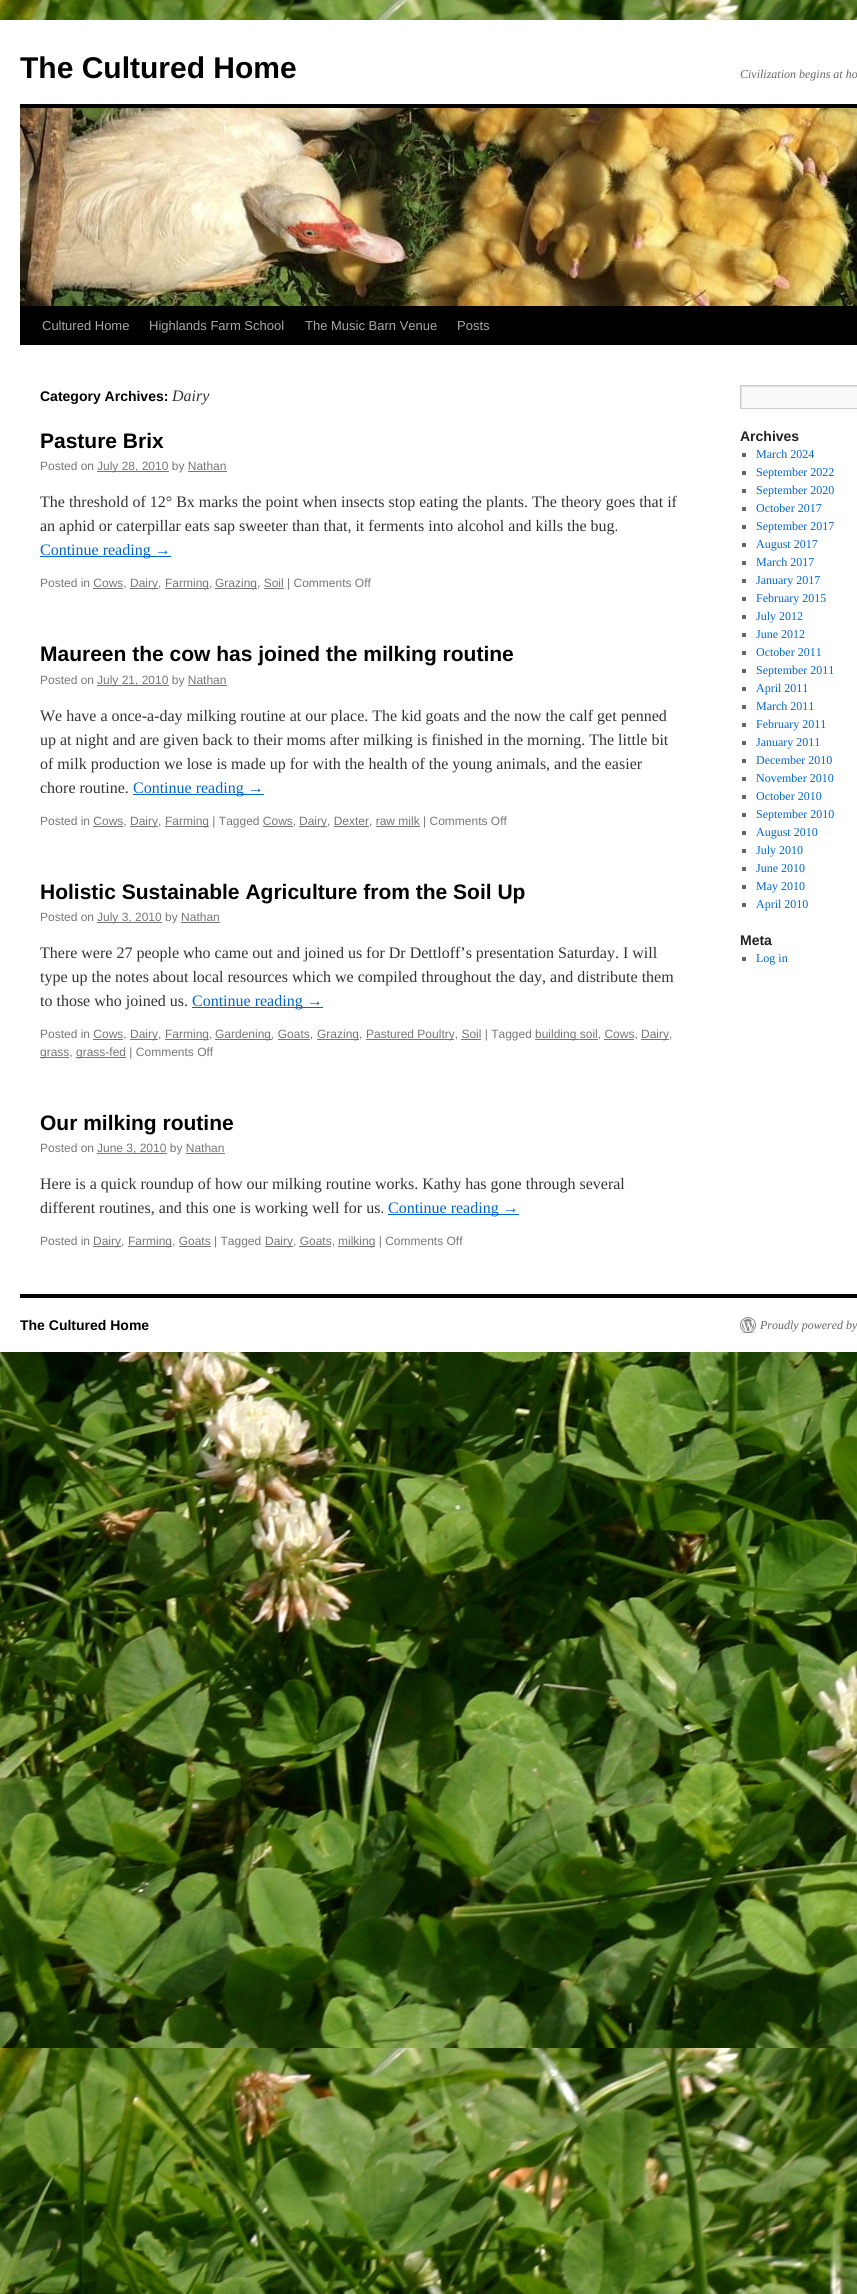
#include <cairo.h>
#include <math.h>
#include <stddef.h>

typedef struct { double x, y; const char *s; } line_t;
typedef struct { double x, y, w, h; unsigned color; } box_t;

static void ink(cairo_t *ctx, unsigned color) {
    cairo_set_source_rgb(ctx, (color >> 16) / 255.0, (color >> 8 & 255) / 255.0, (color & 255) / 255.0);
}

static void paste(cairo_t *ctx, const char *path, double x, double y, double w, double h) {
    cairo_surface_t *image = cairo_image_surface_create_from_png(path);
    cairo_save(ctx);
    cairo_set_source_surface(ctx, image, x, y);
    cairo_rectangle(ctx, x, y, w, h);
    cairo_fill(ctx);
    cairo_restore(ctx);
    cairo_surface_destroy(image);
}

int main(void) {
    cairo_surface_t *surface = cairo_image_surface_create(CAIRO_FORMAT_RGB24, 857, 2294);
    cairo_t *ctx = cairo_create(surface);
    cairo_font_options_t *options = cairo_font_options_create();
    cairo_font_options_set_hint_metrics(options, CAIRO_HINT_METRICS_OFF);
    cairo_font_options_set_hint_style(options, CAIRO_HINT_STYLE_NONE);
    cairo_set_font_options(ctx, options);
    cairo_set_miter_limit(ctx, 4);
    ink(ctx, 0xFFFFFF);
    cairo_paint(ctx);
    paste(ctx, "media/1.png", 0, 0, 857, 2294);
    ink(ctx, 0xFFFFFF);
    cairo_rectangle(ctx, 0, 20, 857, 1332);
    cairo_fill(ctx);
    cairo_select_font_face(ctx, "Liberation Sans", CAIRO_FONT_SLANT_NORMAL, CAIRO_FONT_WEIGHT_BOLD);
    cairo_set_font_size(ctx, 30);
    ink(ctx, 0x000000);
    cairo_move_to(ctx, 20, 78);
    cairo_show_text(ctx, "The Cultured Home");
    cairo_select_font_face(ctx, "Liberation Serif", CAIRO_FONT_SLANT_ITALIC, CAIRO_FONT_WEIGHT_NORMAL);
    cairo_set_font_size(ctx, 12);
    ink(ctx, 0x666666);
    cairo_move_to(ctx, 740, 78);
    cairo_show_text(ctx, "Civilization begins at ho");
    ink(ctx, 0x000000);
    cairo_rectangle(ctx, 20, 104, 837, 4);
    cairo_fill(ctx);
    cairo_rectangle(ctx, 20, 306, 837, 39);
    cairo_fill(ctx);
    paste(ctx, "media/2.png", 20, 108, 837, 198);
    cairo_select_font_face(ctx, "Liberation Sans", CAIRO_FONT_SLANT_NORMAL, CAIRO_FONT_WEIGHT_NORMAL);
    cairo_set_font_size(ctx, 13);
    ink(ctx, 0xAAAAAA);
    {
        static const line_t items[] = {
            {42, 330, "Cultured Home"},
            {149, 330, "Highlands Farm School"},
            {305, 330, "The Music Barn Venue"},
            {457, 330, "Posts"},
        };
        for (size_t i = 0; i < sizeof items / sizeof *items; i++) {
            cairo_move_to(ctx, items[i].x, items[i].y);
            cairo_show_text(ctx, items[i].s);
        }
    }
    cairo_select_font_face(ctx, "Liberation Sans", CAIRO_FONT_SLANT_NORMAL, CAIRO_FONT_WEIGHT_BOLD);
    cairo_set_font_size(ctx, 14);
    ink(ctx, 0x000000);
    cairo_move_to(ctx, 40, 401);
    cairo_show_text(ctx, "Category Archives:");
    cairo_select_font_face(ctx, "Liberation Serif", CAIRO_FONT_SLANT_ITALIC, CAIRO_FONT_WEIGHT_NORMAL);
    cairo_set_font_size(ctx, 16);
    ink(ctx, 0x333333);
    cairo_move_to(ctx, 172, 401);
    cairo_show_text(ctx, "Dairy");
    cairo_select_font_face(ctx, "Liberation Sans", CAIRO_FONT_SLANT_NORMAL, CAIRO_FONT_WEIGHT_BOLD);
    cairo_set_font_size(ctx, 21);
    ink(ctx, 0x000000);
    cairo_move_to(ctx, 40, 448);
    cairo_show_text(ctx, "Pasture Brix");
    cairo_select_font_face(ctx, "Liberation Sans", CAIRO_FONT_SLANT_NORMAL, CAIRO_FONT_WEIGHT_NORMAL);
    cairo_set_font_size(ctx, 12);
    ink(ctx, 0x777777);
    cairo_move_to(ctx, 40, 470);
    cairo_show_text(ctx, "Posted on");
    cairo_rectangle(ctx, 97, 471, 72, 1);
    cairo_fill(ctx);
    cairo_move_to(ctx, 97, 470);
    cairo_show_text(ctx, "July 28, 2010 by Nathan");
    cairo_rectangle(ctx, 188, 471, 39, 1);
    cairo_fill(ctx);
    cairo_select_font_face(ctx, "Liberation Serif", CAIRO_FONT_SLANT_NORMAL, CAIRO_FONT_WEIGHT_NORMAL);
    cairo_set_font_size(ctx, 16);
    ink(ctx, 0x333333);
    cairo_move_to(ctx, 40, 507);
    cairo_show_text(ctx, "The threshold of 12° Bx marks the point when insects stop eating the plants. The theory goes that if");
    cairo_move_to(ctx, 40, 531);
    cairo_show_text(ctx, "an aphid or caterpillar eats sap sweeter than that, it ferments into alcohol and kills the bug.");
    ink(ctx, 0x0066CC);
    cairo_rectangle(ctx, 40, 556, 131, 1);
    cairo_fill(ctx);
    cairo_move_to(ctx, 40, 555);
    cairo_show_text(ctx, "Continue reading →");
    cairo_select_font_face(ctx, "Liberation Sans", CAIRO_FONT_SLANT_NORMAL, CAIRO_FONT_WEIGHT_NORMAL);
    cairo_set_font_size(ctx, 12);
    ink(ctx, 0x777777);
    cairo_move_to(ctx, 40, 587);
    cairo_show_text(ctx, "Posted in Cows,");
    cairo_rectangle(ctx, 93, 588, 30, 1);
    cairo_fill(ctx);
    cairo_rectangle(ctx, 130, 588, 28, 1);
    cairo_fill(ctx);
    cairo_move_to(ctx, 130, 587);
    cairo_show_text(ctx, "Dairy,");
    cairo_rectangle(ctx, 165, 588, 44, 1);
    cairo_fill(ctx);
    cairo_move_to(ctx, 165, 587);
    cairo_show_text(ctx, "Farming,");
    cairo_rectangle(ctx, 215, 588, 42, 1);
    cairo_fill(ctx);
    cairo_move_to(ctx, 215, 587);
    cairo_show_text(ctx, "Grazing, Soil | Comments Off");
    cairo_rectangle(ctx, 264, 588, 20, 1);
    cairo_fill(ctx);
    cairo_select_font_face(ctx, "Liberation Sans", CAIRO_FONT_SLANT_NORMAL, CAIRO_FONT_WEIGHT_BOLD);
    cairo_set_font_size(ctx, 21);
    ink(ctx, 0x000000);
    cairo_move_to(ctx, 40, 661);
    cairo_show_text(ctx, "Maureen the cow has joined the milking routine");
    cairo_select_font_face(ctx, "Liberation Sans", CAIRO_FONT_SLANT_NORMAL, CAIRO_FONT_WEIGHT_NORMAL);
    cairo_set_font_size(ctx, 12);
    ink(ctx, 0x777777);
    cairo_move_to(ctx, 40, 684);
    cairo_show_text(ctx, "Posted on");
    cairo_rectangle(ctx, 97, 685, 72, 1);
    cairo_fill(ctx);
    cairo_move_to(ctx, 97, 684);
    cairo_show_text(ctx, "July 21, 2010 by Nathan");
    cairo_rectangle(ctx, 188, 685, 39, 1);
    cairo_fill(ctx);
    cairo_select_font_face(ctx, "Liberation Serif", CAIRO_FONT_SLANT_NORMAL, CAIRO_FONT_WEIGHT_NORMAL);
    cairo_set_font_size(ctx, 16);
    ink(ctx, 0x333333);
    {
        static const line_t items[] = {
            {40, 721, "We have a once-a-day milking routine at our place. The kid goats and the now the calf get penned"},
            {40, 745, "up at night and are given back to their moms after milking is finished in the morning. The little bit"},
            {40, 769, "of milk production we lose is made up for with the health of the young animals, and the easier"},
            {40, 793, "chore routine."},
        };
        for (size_t i = 0; i < sizeof items / sizeof *items; i++) {
            cairo_move_to(ctx, items[i].x, items[i].y);
            cairo_show_text(ctx, items[i].s);
        }
    }
    ink(ctx, 0x0066CC);
    cairo_rectangle(ctx, 133, 794, 131, 1);
    cairo_fill(ctx);
    cairo_move_to(ctx, 133, 793);
    cairo_show_text(ctx, "Continue reading →");
    cairo_select_font_face(ctx, "Liberation Sans", CAIRO_FONT_SLANT_NORMAL, CAIRO_FONT_WEIGHT_NORMAL);
    cairo_set_font_size(ctx, 12);
    ink(ctx, 0x777777);
    cairo_move_to(ctx, 40, 825);
    cairo_show_text(ctx, "Posted in Cows,");
    cairo_rectangle(ctx, 93, 826, 30, 1);
    cairo_fill(ctx);
    cairo_rectangle(ctx, 130, 826, 28, 1);
    cairo_fill(ctx);
    cairo_move_to(ctx, 130, 825);
    cairo_show_text(ctx, "Dairy,");
    cairo_rectangle(ctx, 165, 826, 44, 1);
    cairo_fill(ctx);
    cairo_move_to(ctx, 165, 825);
    cairo_show_text(ctx, "Farming | Tagged Cows,");
    cairo_rectangle(ctx, 299, 826, 28, 1);
    cairo_fill(ctx);
    cairo_move_to(ctx, 299, 825);
    cairo_show_text(ctx, "Dairy, Dexter, raw milk | Comments Off");
    {
        static const box_t items[] = {
            {263, 826, 30, 1, 0x777777},
            {334, 826, 35, 1, 0x777777},
            {376, 826, 44, 1, 0x777777},
        };
        for (size_t i = 0; i < sizeof items / sizeof *items; i++) {
            ink(ctx, items[i].color);
            cairo_rectangle(ctx, items[i].x, items[i].y, items[i].w, items[i].h);
            cairo_fill(ctx);
        }
    }
    cairo_select_font_face(ctx, "Liberation Sans", CAIRO_FONT_SLANT_NORMAL, CAIRO_FONT_WEIGHT_BOLD);
    cairo_set_font_size(ctx, 21);
    ink(ctx, 0x000000);
    cairo_move_to(ctx, 40, 899);
    cairo_show_text(ctx, "Holistic Sustainable Agriculture from the Soil Up");
    cairo_select_font_face(ctx, "Liberation Sans", CAIRO_FONT_SLANT_NORMAL, CAIRO_FONT_WEIGHT_NORMAL);
    cairo_set_font_size(ctx, 12);
    ink(ctx, 0x777777);
    cairo_move_to(ctx, 40, 921);
    cairo_show_text(ctx, "Posted on");
    cairo_rectangle(ctx, 97, 922, 65, 1);
    cairo_fill(ctx);
    cairo_move_to(ctx, 97, 921);
    cairo_show_text(ctx, "July 3, 2010 by Nathan");
    cairo_rectangle(ctx, 181, 922, 39, 1);
    cairo_fill(ctx);
    cairo_select_font_face(ctx, "Liberation Serif", CAIRO_FONT_SLANT_NORMAL, CAIRO_FONT_WEIGHT_NORMAL);
    cairo_set_font_size(ctx, 16);
    ink(ctx, 0x333333);
    {
        static const line_t items[] = {
            {40, 958, "There were 27 people who came out and joined us for Dr Dettloff’s presentation Saturday. I will"},
            {40, 982, "type up the notes about local resources which we compiled throughout the day, and distribute them"},
            {40, 1006, "to those who joined us."},
        };
        for (size_t i = 0; i < sizeof items / sizeof *items; i++) {
            cairo_move_to(ctx, items[i].x, items[i].y);
            cairo_show_text(ctx, items[i].s);
        }
    }
    ink(ctx, 0x0066CC);
    cairo_rectangle(ctx, 192, 1007, 131, 1);
    cairo_fill(ctx);
    cairo_move_to(ctx, 192, 1006);
    cairo_show_text(ctx, "Continue reading →");
    cairo_select_font_face(ctx, "Liberation Sans", CAIRO_FONT_SLANT_NORMAL, CAIRO_FONT_WEIGHT_NORMAL);
    cairo_set_font_size(ctx, 12);
    ink(ctx, 0x777777);
    cairo_move_to(ctx, 40, 1038);
    cairo_show_text(ctx, "Posted in Cows,");
    cairo_rectangle(ctx, 93, 1039, 30, 1);
    cairo_fill(ctx);
    cairo_rectangle(ctx, 130, 1039, 28, 1);
    cairo_fill(ctx);
    cairo_move_to(ctx, 130, 1038);
    cairo_show_text(ctx, "Dairy,");
    cairo_rectangle(ctx, 165, 1039, 44, 1);
    cairo_fill(ctx);
    cairo_move_to(ctx, 165, 1038);
    cairo_show_text(ctx, "Farming,");
    cairo_rectangle(ctx, 215, 1039, 57, 1);
    cairo_fill(ctx);
    cairo_move_to(ctx, 215, 1038);
    cairo_show_text(ctx, "Gardening, Goats,");
    cairo_rectangle(ctx, 278, 1039, 32, 1);
    cairo_fill(ctx);
    cairo_rectangle(ctx, 317, 1039, 42, 1);
    cairo_fill(ctx);
    cairo_move_to(ctx, 317, 1038);
    cairo_show_text(ctx, "Grazing,");
    cairo_rectangle(ctx, 366, 1039, 88, 1);
    cairo_fill(ctx);
    cairo_move_to(ctx, 366, 1038);
    cairo_show_text(ctx, "Pastured Poultry, Soil | Tagged");
    cairo_rectangle(ctx, 461, 1039, 20, 1);
    cairo_fill(ctx);
    cairo_rectangle(ctx, 535, 1039, 63, 1);
    cairo_fill(ctx);
    cairo_move_to(ctx, 535, 1038);
    cairo_show_text(ctx, "building soil, Cows,");
    cairo_rectangle(ctx, 604, 1039, 30, 1);
    cairo_fill(ctx);
    cairo_rectangle(ctx, 641, 1039, 28, 1);
    cairo_fill(ctx);
    cairo_move_to(ctx, 641, 1038);
    cairo_show_text(ctx, "Dairy,");
    cairo_rectangle(ctx, 40, 1057, 29, 1);
    cairo_fill(ctx);
    cairo_move_to(ctx, 40, 1056);
    cairo_show_text(ctx, "grass,");
    cairo_rectangle(ctx, 76, 1057, 50, 1);
    cairo_fill(ctx);
    cairo_move_to(ctx, 76, 1056);
    cairo_show_text(ctx, "grass-fed | Comments Off");
    cairo_select_font_face(ctx, "Liberation Sans", CAIRO_FONT_SLANT_NORMAL, CAIRO_FONT_WEIGHT_BOLD);
    cairo_set_font_size(ctx, 21);
    ink(ctx, 0x000000);
    cairo_move_to(ctx, 40, 1130);
    cairo_show_text(ctx, "Our milking routine");
    cairo_select_font_face(ctx, "Liberation Sans", CAIRO_FONT_SLANT_NORMAL, CAIRO_FONT_WEIGHT_NORMAL);
    cairo_set_font_size(ctx, 12);
    ink(ctx, 0x777777);
    cairo_move_to(ctx, 40, 1152);
    cairo_show_text(ctx, "Posted on");
    cairo_rectangle(ctx, 97, 1153, 70, 1);
    cairo_fill(ctx);
    cairo_move_to(ctx, 97, 1152);
    cairo_show_text(ctx, "June 3, 2010 by Nathan");
    cairo_rectangle(ctx, 186, 1153, 39, 1);
    cairo_fill(ctx);
    cairo_select_font_face(ctx, "Liberation Serif", CAIRO_FONT_SLANT_NORMAL, CAIRO_FONT_WEIGHT_NORMAL);
    cairo_set_font_size(ctx, 16);
    ink(ctx, 0x333333);
    cairo_move_to(ctx, 40, 1189);
    cairo_show_text(ctx, "Here is a quick roundup of how our milking routine works. Kathy has gone through several");
    cairo_move_to(ctx, 40, 1213);
    cairo_show_text(ctx, "different routines, and this one is working well for us.");
    ink(ctx, 0x0066CC);
    cairo_rectangle(ctx, 388, 1214, 131, 1);
    cairo_fill(ctx);
    cairo_move_to(ctx, 388, 1213);
    cairo_show_text(ctx, "Continue reading →");
    cairo_select_font_face(ctx, "Liberation Sans", CAIRO_FONT_SLANT_NORMAL, CAIRO_FONT_WEIGHT_NORMAL);
    cairo_set_font_size(ctx, 12);
    ink(ctx, 0x777777);
    cairo_move_to(ctx, 40, 1245);
    cairo_show_text(ctx, "Posted in");
    cairo_rectangle(ctx, 93, 1246, 28, 1);
    cairo_fill(ctx);
    cairo_move_to(ctx, 93, 1245);
    cairo_show_text(ctx, "Dairy,");
    cairo_rectangle(ctx, 128, 1246, 44, 1);
    cairo_fill(ctx);
    cairo_move_to(ctx, 128, 1245);
    cairo_show_text(ctx, "Farming, Goats | Tagged");
    cairo_rectangle(ctx, 179, 1246, 32, 1);
    cairo_fill(ctx);
    cairo_rectangle(ctx, 265, 1246, 28, 1);
    cairo_fill(ctx);
    cairo_move_to(ctx, 265, 1245);
    cairo_show_text(ctx, "Dairy, Goats,");
    cairo_rectangle(ctx, 299, 1246, 32, 1);
    cairo_fill(ctx);
    cairo_rectangle(ctx, 338, 1246, 37, 1);
    cairo_fill(ctx);
    cairo_move_to(ctx, 338, 1245);
    cairo_show_text(ctx, "milking | Comments Off");
    ink(ctx, 0xF9F9F9);
    cairo_rectangle(ctx, 742, 387, 115, 21);
    cairo_fill(ctx);
    cairo_save(ctx);
    cairo_rectangle(ctx, 741, 386, 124, 22);
    cairo_clip(ctx);
    ink(ctx, 0xE0E0E0);
    cairo_set_fill_rule(ctx, CAIRO_FILL_RULE_EVEN_ODD);
    cairo_new_path(ctx);
    cairo_move_to(ctx, 642, 287);
    cairo_line_to(ctx, 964, 287);
    cairo_line_to(ctx, 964, 507);
    cairo_line_to(ctx, 642, 507);
    cairo_close_path(ctx);
    cairo_move_to(ctx, 742, 387);
    cairo_line_to(ctx, 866, 387);
    cairo_line_to(ctx, 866, 409);
    cairo_line_to(ctx, 742, 409);
    cairo_close_path(ctx);
    cairo_fill(ctx);
    cairo_restore(ctx);
    cairo_rectangle(ctx, 740.5, 385.5, 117, 23);
    ink(ctx, 0xCCCCCC);
    cairo_set_line_width(ctx, 1);
    cairo_stroke(ctx);
    cairo_select_font_face(ctx, "Liberation Sans", CAIRO_FONT_SLANT_NORMAL, CAIRO_FONT_WEIGHT_BOLD);
    cairo_set_font_size(ctx, 14);
    ink(ctx, 0x222222);
    cairo_move_to(ctx, 740, 441);
    cairo_show_text(ctx, "Archives");
    ink(ctx, 0x666666);
    cairo_rectangle(ctx, 742, 453, 4, 4);
    cairo_fill(ctx);
    cairo_select_font_face(ctx, "Liberation Serif", CAIRO_FONT_SLANT_NORMAL, CAIRO_FONT_WEIGHT_NORMAL);
    cairo_set_font_size(ctx, 12);
    ink(ctx, 0x0066CC);
    cairo_move_to(ctx, 756, 458);
    cairo_show_text(ctx, "March 2024");
    ink(ctx, 0x666666);
    cairo_rectangle(ctx, 742, 471, 4, 4);
    cairo_fill(ctx);
    ink(ctx, 0x0066CC);
    cairo_move_to(ctx, 756, 476);
    cairo_show_text(ctx, "September 2022");
    ink(ctx, 0x666666);
    cairo_rectangle(ctx, 742, 489, 4, 4);
    cairo_fill(ctx);
    ink(ctx, 0x0066CC);
    cairo_move_to(ctx, 756, 494);
    cairo_show_text(ctx, "September 2020");
    ink(ctx, 0x666666);
    cairo_rectangle(ctx, 742, 507, 4, 4);
    cairo_fill(ctx);
    ink(ctx, 0x0066CC);
    cairo_move_to(ctx, 756, 512);
    cairo_show_text(ctx, "October 2017");
    ink(ctx, 0x666666);
    cairo_rectangle(ctx, 742, 525, 4, 4);
    cairo_fill(ctx);
    ink(ctx, 0x0066CC);
    cairo_move_to(ctx, 756, 530);
    cairo_show_text(ctx, "September 2017");
    ink(ctx, 0x666666);
    cairo_rectangle(ctx, 742, 543, 4, 4);
    cairo_fill(ctx);
    ink(ctx, 0x0066CC);
    cairo_move_to(ctx, 756, 548);
    cairo_show_text(ctx, "August 2017");
    ink(ctx, 0x666666);
    cairo_rectangle(ctx, 742, 561, 4, 4);
    cairo_fill(ctx);
    ink(ctx, 0x0066CC);
    cairo_move_to(ctx, 756, 566);
    cairo_show_text(ctx, "March 2017");
    ink(ctx, 0x666666);
    cairo_rectangle(ctx, 742, 579, 4, 4);
    cairo_fill(ctx);
    ink(ctx, 0x0066CC);
    cairo_move_to(ctx, 756, 584);
    cairo_show_text(ctx, "January 2017");
    ink(ctx, 0x666666);
    cairo_rectangle(ctx, 742, 597, 4, 4);
    cairo_fill(ctx);
    ink(ctx, 0x0066CC);
    cairo_move_to(ctx, 756, 602);
    cairo_show_text(ctx, "February 2015");
    ink(ctx, 0x666666);
    cairo_rectangle(ctx, 742, 615, 4, 4);
    cairo_fill(ctx);
    ink(ctx, 0x0066CC);
    cairo_move_to(ctx, 756, 620);
    cairo_show_text(ctx, "July 2012");
    ink(ctx, 0x666666);
    cairo_rectangle(ctx, 742, 633, 4, 4);
    cairo_fill(ctx);
    ink(ctx, 0x0066CC);
    cairo_move_to(ctx, 756, 638);
    cairo_show_text(ctx, "June 2012");
    ink(ctx, 0x666666);
    cairo_rectangle(ctx, 742, 651, 4, 4);
    cairo_fill(ctx);
    ink(ctx, 0x0066CC);
    cairo_move_to(ctx, 756, 656);
    cairo_show_text(ctx, "October 2011");
    ink(ctx, 0x666666);
    cairo_rectangle(ctx, 742, 669, 4, 4);
    cairo_fill(ctx);
    ink(ctx, 0x0066CC);
    cairo_move_to(ctx, 756, 674);
    cairo_show_text(ctx, "September 2011");
    ink(ctx, 0x666666);
    cairo_rectangle(ctx, 742, 687, 4, 4);
    cairo_fill(ctx);
    ink(ctx, 0x0066CC);
    cairo_move_to(ctx, 756, 692);
    cairo_show_text(ctx, "April 2011");
    ink(ctx, 0x666666);
    cairo_rectangle(ctx, 742, 705, 4, 4);
    cairo_fill(ctx);
    ink(ctx, 0x0066CC);
    cairo_move_to(ctx, 756, 710);
    cairo_show_text(ctx, "March 2011");
    ink(ctx, 0x666666);
    cairo_rectangle(ctx, 742, 723, 4, 4);
    cairo_fill(ctx);
    ink(ctx, 0x0066CC);
    cairo_move_to(ctx, 756, 728);
    cairo_show_text(ctx, "February 2011");
    ink(ctx, 0x666666);
    cairo_rectangle(ctx, 742, 741, 4, 4);
    cairo_fill(ctx);
    ink(ctx, 0x0066CC);
    cairo_move_to(ctx, 756, 746);
    cairo_show_text(ctx, "January 2011");
    ink(ctx, 0x666666);
    cairo_rectangle(ctx, 742, 759, 4, 4);
    cairo_fill(ctx);
    ink(ctx, 0x0066CC);
    cairo_move_to(ctx, 756, 764);
    cairo_show_text(ctx, "December 2010");
    ink(ctx, 0x666666);
    cairo_rectangle(ctx, 742, 777, 4, 4);
    cairo_fill(ctx);
    ink(ctx, 0x0066CC);
    cairo_move_to(ctx, 756, 782);
    cairo_show_text(ctx, "November 2010");
    ink(ctx, 0x666666);
    cairo_rectangle(ctx, 742, 795, 4, 4);
    cairo_fill(ctx);
    ink(ctx, 0x0066CC);
    cairo_move_to(ctx, 756, 800);
    cairo_show_text(ctx, "October 2010");
    ink(ctx, 0x666666);
    cairo_rectangle(ctx, 742, 813, 4, 4);
    cairo_fill(ctx);
    ink(ctx, 0x0066CC);
    cairo_move_to(ctx, 756, 818);
    cairo_show_text(ctx, "September 2010");
    ink(ctx, 0x666666);
    cairo_rectangle(ctx, 742, 831, 4, 4);
    cairo_fill(ctx);
    ink(ctx, 0x0066CC);
    cairo_move_to(ctx, 756, 836);
    cairo_show_text(ctx, "August 2010");
    ink(ctx, 0x666666);
    cairo_rectangle(ctx, 742, 849, 4, 4);
    cairo_fill(ctx);
    ink(ctx, 0x0066CC);
    cairo_move_to(ctx, 756, 854);
    cairo_show_text(ctx, "July 2010");
    ink(ctx, 0x666666);
    cairo_rectangle(ctx, 742, 867, 4, 4);
    cairo_fill(ctx);
    ink(ctx, 0x0066CC);
    cairo_move_to(ctx, 756, 872);
    cairo_show_text(ctx, "June 2010");
    ink(ctx, 0x666666);
    cairo_rectangle(ctx, 742, 885, 4, 4);
    cairo_fill(ctx);
    ink(ctx, 0x0066CC);
    cairo_move_to(ctx, 756, 890);
    cairo_show_text(ctx, "May 2010");
    ink(ctx, 0x666666);
    cairo_rectangle(ctx, 742, 903, 4, 4);
    cairo_fill(ctx);
    ink(ctx, 0x0066CC);
    cairo_move_to(ctx, 756, 908);
    cairo_show_text(ctx, "April 2010");
    cairo_select_font_face(ctx, "Liberation Sans", CAIRO_FONT_SLANT_NORMAL, CAIRO_FONT_WEIGHT_BOLD);
    cairo_set_font_size(ctx, 14);
    ink(ctx, 0x222222);
    cairo_move_to(ctx, 740, 945);
    cairo_show_text(ctx, "Meta");
    ink(ctx, 0x666666);
    cairo_rectangle(ctx, 742, 957, 4, 4);
    cairo_fill(ctx);
    cairo_select_font_face(ctx, "Liberation Serif", CAIRO_FONT_SLANT_NORMAL, CAIRO_FONT_WEIGHT_NORMAL);
    cairo_set_font_size(ctx, 12);
    ink(ctx, 0x0066CC);
    cairo_move_to(ctx, 756, 962);
    cairo_show_text(ctx, "Log in");
    ink(ctx, 0x000000);
    cairo_rectangle(ctx, 20, 1294, 837, 4);
    cairo_fill(ctx);
    cairo_select_font_face(ctx, "Liberation Sans", CAIRO_FONT_SLANT_NORMAL, CAIRO_FONT_WEIGHT_BOLD);
    cairo_set_font_size(ctx, 14);
    cairo_move_to(ctx, 20, 1330);
    cairo_show_text(ctx, "The Cultured Home");
    paste(ctx, "media/3.png", 740, 1317, 16, 16);
    cairo_select_font_face(ctx, "Liberation Serif", CAIRO_FONT_SLANT_ITALIC, CAIRO_FONT_WEIGHT_NORMAL);
    cairo_set_font_size(ctx, 12);
    ink(ctx, 0x666666);
    cairo_move_to(ctx, 760, 1329);
    cairo_show_text(ctx, "Proudly powered by");
    cairo_surface_write_to_png(surface, "image.png");
    cairo_font_options_destroy(options);
    cairo_destroy(ctx);
    cairo_surface_destroy(surface);
    return 0;
}
